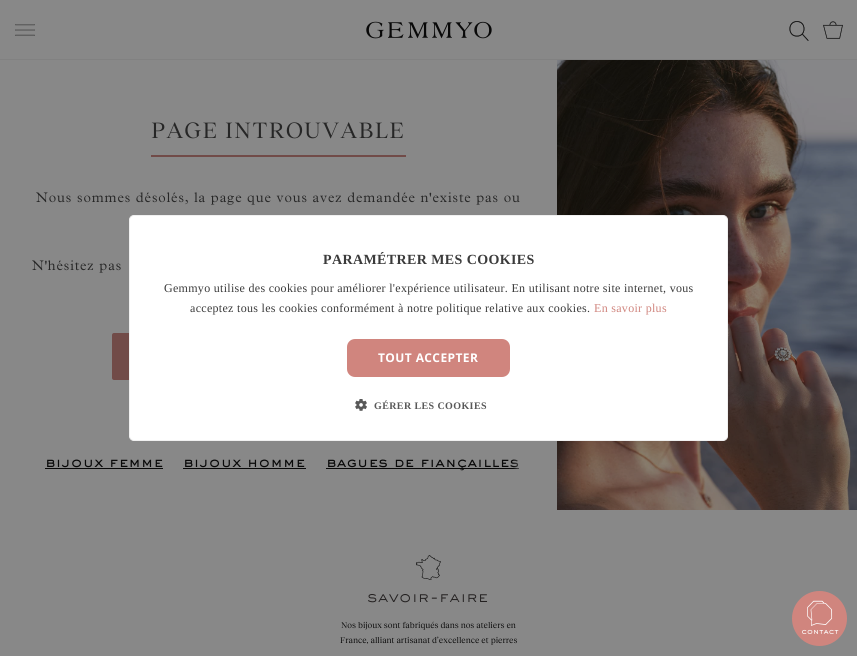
#include <cairo.h>
#include <math.h>
#include <stddef.h>


static void ink(cairo_t *ctx, unsigned color) {
    cairo_set_source_rgb(ctx, (color >> 16) / 255.0, (color >> 8 & 255) / 255.0, (color & 255) / 255.0);
}

static void write_spaced(cairo_t *ctx, double x, double y, const char *s, double letter, double word) {
    cairo_move_to(ctx, x, y);
    while (*s) {
        char ch[5] = {0};
        int n = 0;
        do ch[n++] = *s++; while ((*s & 0xC0) == 0x80);
        cairo_show_text(ctx, ch);
        cairo_rel_move_to(ctx, letter + word * (*ch == ' '), 0);
    }
}

static void round_path(cairo_t *ctx, double x, double y, double w, double h, double r) {
    cairo_new_sub_path(ctx);
    cairo_arc(ctx, x + w - r, y + h - r, r, 0, M_PI / 2);
    cairo_arc(ctx, x + r, y + h - r, r, M_PI / 2, M_PI);
    cairo_arc(ctx, x + r, y + r, r, M_PI, 1.5 * M_PI);
    cairo_arc(ctx, x + w - r, y + r, r, 1.5 * M_PI, 2 * M_PI);
    cairo_close_path(ctx);
}

static void paste(cairo_t *ctx, const char *path, double x, double y, double w, double h) {
    cairo_surface_t *image = cairo_image_surface_create_from_png(path);
    cairo_save(ctx);
    cairo_set_source_surface(ctx, image, x, y);
    cairo_rectangle(ctx, x, y, w, h);
    cairo_fill(ctx);
    cairo_restore(ctx);
    cairo_surface_destroy(image);
}

int main(void) {
    cairo_surface_t *surface = cairo_image_surface_create(CAIRO_FORMAT_RGB24, 857, 656);
    cairo_t *ctx = cairo_create(surface);
    cairo_font_options_t *options = cairo_font_options_create();
    cairo_font_options_set_hint_metrics(options, CAIRO_HINT_METRICS_OFF);
    cairo_font_options_set_hint_style(options, CAIRO_HINT_STYLE_NONE);
    cairo_set_font_options(ctx, options);
    cairo_set_miter_limit(ctx, 4);
    cairo_pattern_t *gradient;
    ink(ctx, 0x888888);
    cairo_paint(ctx);
    ink(ctx, 0x818181);
    cairo_rectangle(ctx, 0, 59, 857, 1);
    cairo_fill(ctx);
    paste(ctx, "media/1.png", 15, 24, 20, 12);
    paste(ctx, "media/2.png", 366, 21, 126, 18);
    paste(ctx, "media/3.png", 789, 21, 20, 20);
    paste(ctx, "media/4.png", 823, 21, 20, 18);
    ink(ctx, 0x714B48);
    cairo_rectangle(ctx, 151, 155, 255, 2);
    cairo_fill(ctx);
    cairo_select_font_face(ctx, "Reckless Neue", CAIRO_FONT_SLANT_NORMAL, CAIRO_FONT_WEIGHT_NORMAL);
    cairo_set_font_size(ctx, 23);
    ink(ctx, 0x262626);
    write_spaced(ctx, 151, 138, "PAGE INTROUVABLE", 1.1, 0);
    cairo_select_font_face(ctx, "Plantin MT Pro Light", CAIRO_FONT_SLANT_NORMAL, CAIRO_FONT_WEIGHT_NORMAL);
    cairo_set_font_size(ctx, 14);
    write_spaced(ctx, 36, 202, "Nous sommes désolés, la page que vous avez demandée n'existe pas ou", 0.9, 0);
    write_spaced(ctx, 32, 270, "N'hésitez pas", 0.9, 0);
    ink(ctx, 0x714B48);
    round_path(ctx, 112, 333, 333, 47, 2);
    cairo_fill(ctx);
    cairo_select_font_face(ctx, "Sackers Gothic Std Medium", CAIRO_FONT_SLANT_NORMAL, CAIRO_FONT_WEIGHT_NORMAL);
    ink(ctx, 0x090909);
    write_spaced(ctx, 45, 467, "bijoux femme", 0.3, 0);
    cairo_rectangle(ctx, 45, 468, 118, 1);
    cairo_fill(ctx);
    write_spaced(ctx, 183, 467, "bijoux homme", 0.3, 0);
    cairo_rectangle(ctx, 183, 468, 123, 1);
    cairo_fill(ctx);
    cairo_rectangle(ctx, 326, 468, 193, 1);
    cairo_fill(ctx);
    write_spaced(ctx, 326, 467, "bagues de fiançailles", 0.3, 0);
    gradient = cairo_pattern_create_linear(513, 465, 538, 465);
    cairo_pattern_add_color_stop_rgba(gradient, 0, 0.533, 0.533, 0.533, 0);
    cairo_pattern_add_color_stop_rgba(gradient, 0.5, 0.533, 0.533, 0.533, 1);
    cairo_pattern_add_color_stop_rgba(gradient, 1, 0.533, 0.533, 0.533, 1);
    cairo_set_source(ctx, gradient);
    cairo_pattern_destroy(gradient);
    cairo_rectangle(ctx, 513, 459, 6, 10);
    cairo_fill(ctx);
    paste(ctx, "media/5.png", 557, 60, 300, 450);
    ink(ctx, 0xFFFFFF);
    round_path(ctx, 129.5, 215.5, 598, 225, 4.5);
    cairo_fill_preserve(ctx);
    ink(ctx, 0xF0F0F0);
    cairo_set_line_width(ctx, 1);
    cairo_stroke(ctx);
    cairo_select_font_face(ctx, "Liberation Serif", CAIRO_FONT_SLANT_NORMAL, CAIRO_FONT_WEIGHT_BOLD);
    ink(ctx, 0x3B3B3B);
    write_spaced(ctx, 323, 264, "PARAMÉTRER MES COOKIES", 0.4, 0);
    cairo_select_font_face(ctx, "Liberation Serif", CAIRO_FONT_SLANT_NORMAL, CAIRO_FONT_WEIGHT_NORMAL);
    cairo_set_font_size(ctx, 12);
    write_spaced(ctx, 164, 292, "Gemmyo utilise des cookies pour améliorer l'expérience utilisateur. En utilisant notre site internet, vous", 0.3, 0);
    write_spaced(ctx, 190, 312, "acceptez tous les cookies conformément à notre politique relative aux cookies.", 0.3, 0);
    ink(ctx, 0xD0857E);
    write_spaced(ctx, 594, 312, "En savoir plus", 0.3, 0);
    round_path(ctx, 347, 339, 163, 38, 8);
    cairo_fill(ctx);
    cairo_select_font_face(ctx, "Open Sans", CAIRO_FONT_SLANT_NORMAL, CAIRO_FONT_WEIGHT_BOLD);
    ink(ctx, 0xFFFFFF);
    write_spaced(ctx, 378, 362, "TOUT ACCEPTER", 0.4, 0);
    paste(ctx, "media/6.png", 355, 399, 12, 12);
    cairo_select_font_face(ctx, "Liberation Serif", CAIRO_FONT_SLANT_NORMAL, CAIRO_FONT_WEIGHT_BOLD);
    cairo_set_font_size(ctx, 10);
    ink(ctx, 0x585858);
    write_spaced(ctx, 374, 409, "GÉRER LES COOKIES", 0.4, 0);
    paste(ctx, "media/7.png", 416, 555, 25, 25);
    cairo_select_font_face(ctx, "Sackers Gothic Std Light", CAIRO_FONT_SLANT_NORMAL, CAIRO_FONT_WEIGHT_NORMAL);
    cairo_set_font_size(ctx, 15);
    ink(ctx, 0x232020);
    write_spaced(ctx, 367, 602, "savoir-faire", 0.6, 0);
    cairo_select_font_face(ctx, "Reckless Neue", CAIRO_FONT_SLANT_NORMAL, CAIRO_FONT_WEIGHT_NORMAL);
    cairo_set_font_size(ctx, 8.5);
    ink(ctx, 0x090909);
    cairo_move_to(ctx, 341, 628);
    cairo_show_text(ctx, "Nos bijoux sont fabriqués dans nos ateliers en");
    cairo_move_to(ctx, 340, 643);
    cairo_show_text(ctx, "France, alliant artisanat d’excellence et pierres");
    paste(ctx, "media/8.png", 792, 591, 55, 55);
    cairo_surface_write_to_png(surface, "image.png");
    cairo_font_options_destroy(options);
    cairo_destroy(ctx);
    cairo_surface_destroy(surface);
    return 0;
}
